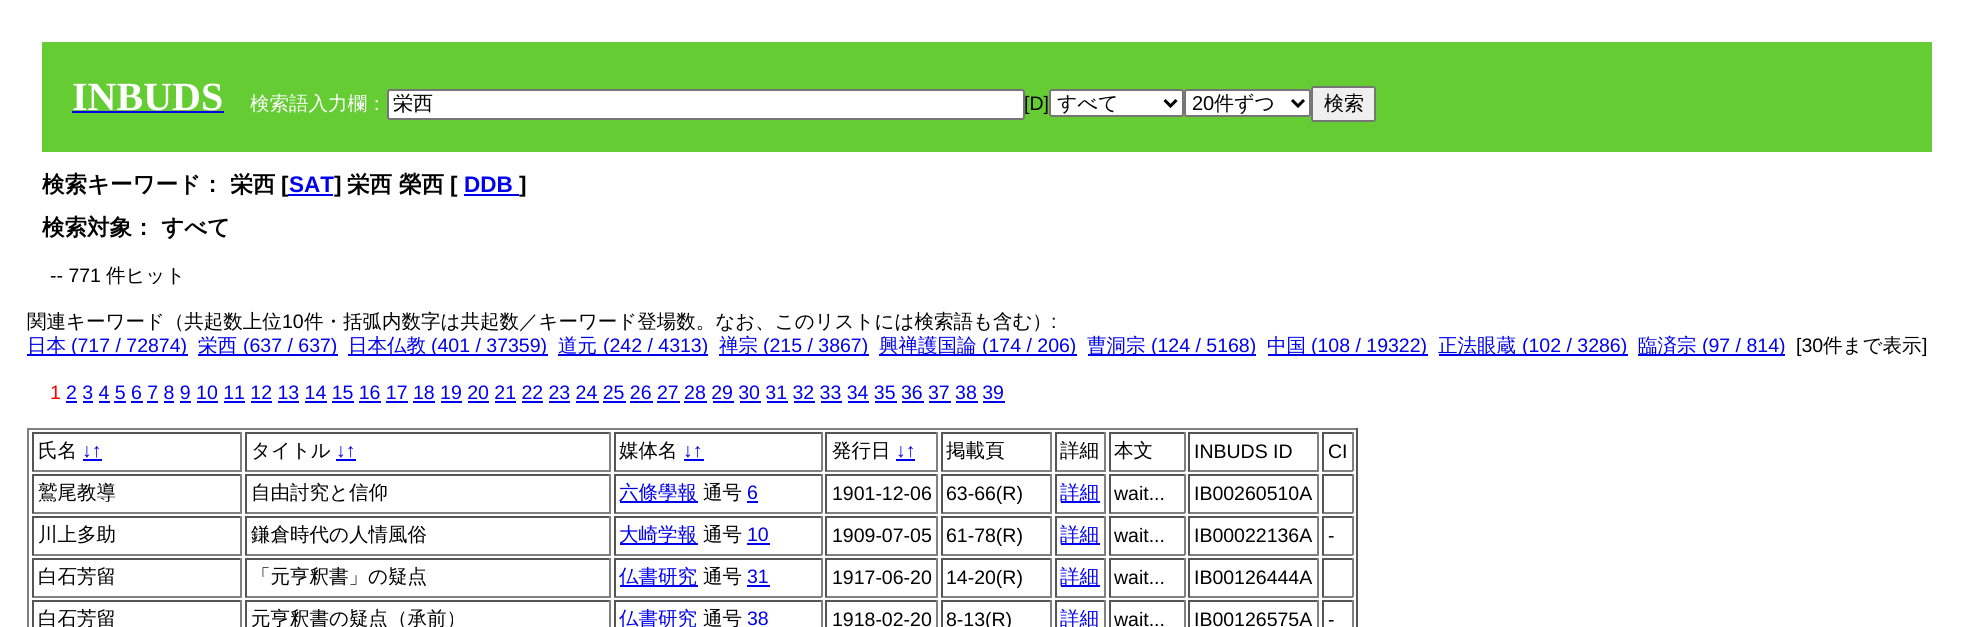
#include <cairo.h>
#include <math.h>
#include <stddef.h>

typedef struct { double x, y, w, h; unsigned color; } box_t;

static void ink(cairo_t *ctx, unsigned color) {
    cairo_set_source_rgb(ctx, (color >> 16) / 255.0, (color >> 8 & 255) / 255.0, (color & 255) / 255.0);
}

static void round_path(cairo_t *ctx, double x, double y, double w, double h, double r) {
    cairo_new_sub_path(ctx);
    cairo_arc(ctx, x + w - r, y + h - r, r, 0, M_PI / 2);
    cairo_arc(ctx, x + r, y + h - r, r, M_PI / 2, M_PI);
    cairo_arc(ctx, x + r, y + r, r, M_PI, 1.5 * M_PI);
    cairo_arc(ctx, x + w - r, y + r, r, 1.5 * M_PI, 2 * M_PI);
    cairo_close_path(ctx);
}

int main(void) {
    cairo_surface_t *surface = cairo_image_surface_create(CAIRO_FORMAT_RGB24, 1974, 627);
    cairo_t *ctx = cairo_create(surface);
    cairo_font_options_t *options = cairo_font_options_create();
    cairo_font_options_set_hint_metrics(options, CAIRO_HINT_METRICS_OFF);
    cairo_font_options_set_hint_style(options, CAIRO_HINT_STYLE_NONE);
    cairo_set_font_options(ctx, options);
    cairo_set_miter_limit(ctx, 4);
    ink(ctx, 0xFFFFFF);
    cairo_paint(ctx);
    ink(ctx, 0x66CC33);
    cairo_rectangle(ctx, 42, 42, 1890, 110);
    cairo_fill(ctx);
    cairo_select_font_face(ctx, "Liberation Serif", CAIRO_FONT_SLANT_NORMAL, CAIRO_FONT_WEIGHT_BOLD);
    cairo_set_font_size(ctx, 40);
    ink(ctx, 0xFFFFFF);
    cairo_move_to(ctx, 72, 110);
    cairo_show_text(ctx, "INBUDS");
    ink(ctx, 0x0000EE);
    cairo_rectangle(ctx, 72, 111, 152, 2);
    cairo_fill(ctx);
    cairo_select_font_face(ctx, "WenQuanYi Zen Hei Medium", CAIRO_FONT_SLANT_NORMAL, CAIRO_FONT_WEIGHT_NORMAL);
    cairo_set_font_size(ctx, 19.5);
    ink(ctx, 0xFFFFFF);
    cairo_move_to(ctx, 250, 110);
    cairo_show_text(ctx, "検索語入力欄：");
    round_path(ctx, 388, 90, 636, 29, 2);
    cairo_fill_preserve(ctx);
    ink(ctx, 0x767676);
    cairo_stroke(ctx);
    cairo_set_font_size(ctx, 20);
    ink(ctx, 0x000000);
    cairo_move_to(ctx, 393, 110);
    cairo_show_text(ctx, "栄西");
    cairo_select_font_face(ctx, "Liberation Sans", CAIRO_FONT_SLANT_NORMAL, CAIRO_FONT_WEIGHT_NORMAL);
    cairo_set_font_size(ctx, 19.5);
    cairo_move_to(ctx, 1024, 110);
    cairo_show_text(ctx, "[D]");
    ink(ctx, 0xFFFFFF);
    round_path(ctx, 1050, 90, 133, 26, 2);
    cairo_fill_preserve(ctx);
    ink(ctx, 0x767676);
    cairo_stroke(ctx);
    cairo_new_path(ctx);
    cairo_move_to(ctx, 1164.5, 100);
    cairo_line_to(ctx, 1170.5, 106);
    cairo_line_to(ctx, 1176.5, 100);
    ink(ctx, 0x000000);
    cairo_set_line_width(ctx, 3);
    cairo_stroke(ctx);
    cairo_select_font_face(ctx, "WenQuanYi Zen Hei Medium", CAIRO_FONT_SLANT_NORMAL, CAIRO_FONT_WEIGHT_NORMAL);
    cairo_set_font_size(ctx, 20);
    cairo_move_to(ctx, 1057, 110);
    cairo_show_text(ctx, "すべて");
    ink(ctx, 0xFFFFFF);
    round_path(ctx, 1185, 90, 125, 26, 2);
    cairo_fill_preserve(ctx);
    ink(ctx, 0x767676);
    cairo_set_line_width(ctx, 2);
    cairo_stroke(ctx);
    cairo_new_path(ctx);
    cairo_move_to(ctx, 1292, 100);
    cairo_line_to(ctx, 1298, 106);
    cairo_line_to(ctx, 1304, 100);
    ink(ctx, 0x000000);
    cairo_set_line_width(ctx, 3);
    cairo_stroke(ctx);
    cairo_select_font_face(ctx, "Liberation Sans", CAIRO_FONT_SLANT_NORMAL, CAIRO_FONT_WEIGHT_NORMAL);
    cairo_move_to(ctx, 1192, 110);
    cairo_show_text(ctx, "20");
    cairo_select_font_face(ctx, "WenQuanYi Zen Hei Medium", CAIRO_FONT_SLANT_NORMAL, CAIRO_FONT_WEIGHT_NORMAL);
    cairo_move_to(ctx, 1214, 110);
    cairo_show_text(ctx, "件ずつ");
    ink(ctx, 0xEFEFEF);
    round_path(ctx, 1312, 87, 63, 34, 2);
    cairo_fill_preserve(ctx);
    ink(ctx, 0x767676);
    cairo_set_line_width(ctx, 2);
    cairo_stroke(ctx);
    ink(ctx, 0x000000);
    cairo_move_to(ctx, 1324, 110);
    cairo_show_text(ctx, "検索");
    cairo_select_font_face(ctx, "WenQuanYi Zen Hei", CAIRO_FONT_SLANT_NORMAL, CAIRO_FONT_WEIGHT_BOLD);
    cairo_set_font_size(ctx, 22.5);
    cairo_move_to(ctx, 42, 192);
    cairo_show_text(ctx, "検索キーワード： 栄西");
    cairo_select_font_face(ctx, "Liberation Sans", CAIRO_FONT_SLANT_NORMAL, CAIRO_FONT_WEIGHT_BOLD);
    cairo_move_to(ctx, 281, 192);
    cairo_show_text(ctx, "[");
    ink(ctx, 0x0000EE);
    cairo_move_to(ctx, 289, 192);
    cairo_show_text(ctx, "SAT");
    cairo_rectangle(ctx, 288, 194, 45, 2);
    cairo_fill(ctx);
    ink(ctx, 0x000000);
    cairo_move_to(ctx, 334, 192);
    cairo_show_text(ctx, "]");
    cairo_select_font_face(ctx, "WenQuanYi Zen Hei", CAIRO_FONT_SLANT_NORMAL, CAIRO_FONT_WEIGHT_BOLD);
    cairo_move_to(ctx, 347, 192);
    cairo_show_text(ctx, "栄西");
    cairo_move_to(ctx, 399, 192);
    cairo_show_text(ctx, "榮西");
    cairo_select_font_face(ctx, "Liberation Sans", CAIRO_FONT_SLANT_NORMAL, CAIRO_FONT_WEIGHT_BOLD);
    cairo_move_to(ctx, 450, 192);
    cairo_show_text(ctx, "[");
    ink(ctx, 0x0000EE);
    cairo_move_to(ctx, 464, 192);
    cairo_show_text(ctx, "DDB");
    cairo_rectangle(ctx, 464, 194, 55, 2);
    cairo_fill(ctx);
    ink(ctx, 0x000000);
    cairo_move_to(ctx, 519, 192);
    cairo_show_text(ctx, "]");
    cairo_select_font_face(ctx, "WenQuanYi Zen Hei", CAIRO_FONT_SLANT_NORMAL, CAIRO_FONT_WEIGHT_BOLD);
    cairo_move_to(ctx, 42, 235);
    cairo_show_text(ctx, "検索対象： すべて");
    cairo_select_font_face(ctx, "Liberation Sans", CAIRO_FONT_SLANT_NORMAL, CAIRO_FONT_WEIGHT_NORMAL);
    cairo_set_font_size(ctx, 19.5);
    cairo_move_to(ctx, 50, 282);
    cairo_show_text(ctx, "-- 771");
    cairo_select_font_face(ctx, "WenQuanYi Zen Hei Medium", CAIRO_FONT_SLANT_NORMAL, CAIRO_FONT_WEIGHT_NORMAL);
    cairo_move_to(ctx, 106, 282);
    cairo_show_text(ctx, "件ヒット");
    cairo_move_to(ctx, 27, 328);
    cairo_show_text(ctx, "関連キーワード（共起数上位");
    cairo_select_font_face(ctx, "Liberation Sans", CAIRO_FONT_SLANT_NORMAL, CAIRO_FONT_WEIGHT_NORMAL);
    cairo_move_to(ctx, 282, 328);
    cairo_show_text(ctx, "10");
    cairo_select_font_face(ctx, "WenQuanYi Zen Hei Medium", CAIRO_FONT_SLANT_NORMAL, CAIRO_FONT_WEIGHT_NORMAL);
    cairo_move_to(ctx, 304, 328);
    cairo_show_text(ctx, "件・括弧内数字は共起数／キーワード登場数。なお、このリストには検索語も含む）");
    cairo_select_font_face(ctx, "Liberation Sans", CAIRO_FONT_SLANT_NORMAL, CAIRO_FONT_WEIGHT_NORMAL);
    cairo_move_to(ctx, 1051, 328);
    cairo_show_text(ctx, ":");
    ink(ctx, 0x0000EE);
    cairo_rectangle(ctx, 27, 354, 161, 2);
    cairo_fill(ctx);
    cairo_select_font_face(ctx, "WenQuanYi Zen Hei Medium", CAIRO_FONT_SLANT_NORMAL, CAIRO_FONT_WEIGHT_NORMAL);
    cairo_move_to(ctx, 27, 352);
    cairo_show_text(ctx, "日本");
    cairo_select_font_face(ctx, "Liberation Sans", CAIRO_FONT_SLANT_NORMAL, CAIRO_FONT_WEIGHT_NORMAL);
    cairo_move_to(ctx, 71, 352);
    cairo_show_text(ctx, "(717 / 72874)");
    cairo_rectangle(ctx, 198, 354, 140, 2);
    cairo_fill(ctx);
    cairo_select_font_face(ctx, "WenQuanYi Zen Hei Medium", CAIRO_FONT_SLANT_NORMAL, CAIRO_FONT_WEIGHT_NORMAL);
    cairo_move_to(ctx, 198, 352);
    cairo_show_text(ctx, "栄西");
    cairo_select_font_face(ctx, "Liberation Sans", CAIRO_FONT_SLANT_NORMAL, CAIRO_FONT_WEIGHT_NORMAL);
    cairo_move_to(ctx, 243, 352);
    cairo_show_text(ctx, "(637 / 637)");
    cairo_rectangle(ctx, 348, 354, 200, 2);
    cairo_fill(ctx);
    cairo_select_font_face(ctx, "WenQuanYi Zen Hei Medium", CAIRO_FONT_SLANT_NORMAL, CAIRO_FONT_WEIGHT_NORMAL);
    cairo_move_to(ctx, 348, 352);
    cairo_show_text(ctx, "日本仏教");
    cairo_select_font_face(ctx, "Liberation Sans", CAIRO_FONT_SLANT_NORMAL, CAIRO_FONT_WEIGHT_NORMAL);
    cairo_move_to(ctx, 431, 352);
    cairo_show_text(ctx, "(401 / 37359)");
    cairo_rectangle(ctx, 558, 354, 150, 2);
    cairo_fill(ctx);
    cairo_select_font_face(ctx, "WenQuanYi Zen Hei Medium", CAIRO_FONT_SLANT_NORMAL, CAIRO_FONT_WEIGHT_NORMAL);
    cairo_move_to(ctx, 558, 352);
    cairo_show_text(ctx, "道元");
    cairo_select_font_face(ctx, "Liberation Sans", CAIRO_FONT_SLANT_NORMAL, CAIRO_FONT_WEIGHT_NORMAL);
    cairo_move_to(ctx, 603, 352);
    cairo_show_text(ctx, "(242 / 4313)");
    cairo_rectangle(ctx, 719, 354, 150, 2);
    cairo_fill(ctx);
    cairo_select_font_face(ctx, "WenQuanYi Zen Hei Medium", CAIRO_FONT_SLANT_NORMAL, CAIRO_FONT_WEIGHT_NORMAL);
    cairo_move_to(ctx, 719, 352);
    cairo_show_text(ctx, "禅宗");
    cairo_select_font_face(ctx, "Liberation Sans", CAIRO_FONT_SLANT_NORMAL, CAIRO_FONT_WEIGHT_NORMAL);
    cairo_move_to(ctx, 763, 352);
    cairo_show_text(ctx, "(215 / 3867)");
    cairo_rectangle(ctx, 879, 354, 198, 2);
    cairo_fill(ctx);
    cairo_select_font_face(ctx, "WenQuanYi Zen Hei Medium", CAIRO_FONT_SLANT_NORMAL, CAIRO_FONT_WEIGHT_NORMAL);
    cairo_move_to(ctx, 879, 352);
    cairo_show_text(ctx, "興禅護国論");
    cairo_select_font_face(ctx, "Liberation Sans", CAIRO_FONT_SLANT_NORMAL, CAIRO_FONT_WEIGHT_NORMAL);
    cairo_move_to(ctx, 982, 352);
    cairo_show_text(ctx, "(174 / 206)");
    cairo_rectangle(ctx, 1088, 354, 168, 2);
    cairo_fill(ctx);
    cairo_select_font_face(ctx, "WenQuanYi Zen Hei Medium", CAIRO_FONT_SLANT_NORMAL, CAIRO_FONT_WEIGHT_NORMAL);
    cairo_move_to(ctx, 1087, 352);
    cairo_show_text(ctx, "曹洞宗");
    cairo_select_font_face(ctx, "Liberation Sans", CAIRO_FONT_SLANT_NORMAL, CAIRO_FONT_WEIGHT_NORMAL);
    cairo_move_to(ctx, 1151, 352);
    cairo_show_text(ctx, "(124 / 5168)");
    cairo_rectangle(ctx, 1268, 354, 160, 2);
    cairo_fill(ctx);
    cairo_select_font_face(ctx, "WenQuanYi Zen Hei Medium", CAIRO_FONT_SLANT_NORMAL, CAIRO_FONT_WEIGHT_NORMAL);
    cairo_move_to(ctx, 1267, 352);
    cairo_show_text(ctx, "中国");
    cairo_select_font_face(ctx, "Liberation Sans", CAIRO_FONT_SLANT_NORMAL, CAIRO_FONT_WEIGHT_NORMAL);
    cairo_move_to(ctx, 1311, 352);
    cairo_show_text(ctx, "(108 / 19322)");
    cairo_rectangle(ctx, 1439, 354, 189, 2);
    cairo_fill(ctx);
    cairo_select_font_face(ctx, "WenQuanYi Zen Hei Medium", CAIRO_FONT_SLANT_NORMAL, CAIRO_FONT_WEIGHT_NORMAL);
    cairo_move_to(ctx, 1438, 352);
    cairo_show_text(ctx, "正法眼蔵");
    cairo_select_font_face(ctx, "Liberation Sans", CAIRO_FONT_SLANT_NORMAL, CAIRO_FONT_WEIGHT_NORMAL);
    cairo_move_to(ctx, 1522, 352);
    cairo_show_text(ctx, "(102 / 3286)");
    cairo_rectangle(ctx, 1638, 354, 147, 2);
    cairo_fill(ctx);
    cairo_select_font_face(ctx, "WenQuanYi Zen Hei Medium", CAIRO_FONT_SLANT_NORMAL, CAIRO_FONT_WEIGHT_NORMAL);
    cairo_move_to(ctx, 1638, 352);
    cairo_show_text(ctx, "臨済宗");
    cairo_select_font_face(ctx, "Liberation Sans", CAIRO_FONT_SLANT_NORMAL, CAIRO_FONT_WEIGHT_NORMAL);
    cairo_move_to(ctx, 1702, 352);
    cairo_show_text(ctx, "(97 / 814)");
    ink(ctx, 0x000000);
    cairo_move_to(ctx, 1796, 352);
    cairo_show_text(ctx, "[30");
    cairo_select_font_face(ctx, "WenQuanYi Zen Hei Medium", CAIRO_FONT_SLANT_NORMAL, CAIRO_FONT_WEIGHT_NORMAL);
    cairo_move_to(ctx, 1823, 352);
    cairo_show_text(ctx, "件まで表示");
    cairo_select_font_face(ctx, "Liberation Sans", CAIRO_FONT_SLANT_NORMAL, CAIRO_FONT_WEIGHT_NORMAL);
    cairo_move_to(ctx, 1922, 352);
    cairo_show_text(ctx, "]");
    ink(ctx, 0xFF0000);
    cairo_move_to(ctx, 50, 399);
    cairo_show_text(ctx, "1");
    ink(ctx, 0x0000EE);
    cairo_move_to(ctx, 66, 399);
    cairo_show_text(ctx, "2 3 4 5 6 7 8 9 10 11 12 13 14 15 16 17 18 19 20 21 22 23 24 25 26 27 28 29 30 31 32 33 34 35 36 37 38 39");
    {
        static const box_t items[] = {
            {66, 401, 11, 2, 0x0000EE},
            {83, 401, 10, 2, 0x0000EE},
            {99, 401, 11, 2, 0x0000EE},
            {114, 401, 12, 2, 0x0000EE},
            {131, 401, 12, 2, 0x0000EE},
            {147, 401, 11, 2, 0x0000EE},
            {164, 401, 10, 2, 0x0000EE},
            {180, 401, 11, 2, 0x0000EE},
            {197, 401, 21, 2, 0x0000EE},
            {224, 401, 21, 2, 0x0000EE},
            {251, 401, 21, 2, 0x0000EE},
            {278, 401, 21, 2, 0x0000EE},
            {305, 401, 22, 2, 0x0000EE},
            {332, 401, 22, 2, 0x0000EE},
            {359, 401, 22, 2, 0x0000EE},
            {386, 401, 22, 2, 0x0000EE},
            {413, 401, 22, 2, 0x0000EE},
            {441, 401, 21, 2, 0x0000EE},
            {468, 401, 21, 2, 0x0000EE},
            {495, 401, 21, 2, 0x0000EE},
            {522, 401, 21, 2, 0x0000EE},
            {549, 401, 21, 2, 0x0000EE},
            {576, 401, 23, 2, 0x0000EE},
            {603, 401, 23, 2, 0x0000EE},
            {630, 401, 23, 2, 0x0000EE},
            {657, 401, 23, 2, 0x0000EE},
            {684, 401, 23, 2, 0x0000EE},
            {713, 401, 21, 2, 0x0000EE},
            {740, 401, 21, 2, 0x0000EE},
            {767, 401, 21, 2, 0x0000EE},
            {794, 401, 21, 2, 0x0000EE},
            {821, 401, 21, 2, 0x0000EE},
            {848, 401, 21, 2, 0x0000EE},
            {875, 401, 22, 2, 0x0000EE},
            {902, 401, 22, 2, 0x0000EE},
            {929, 401, 22, 2, 0x0000EE},
            {956, 401, 22, 2, 0x0000EE},
            {983, 401, 22, 2, 0x0000EE},
            {27, 428, 1331, 2, 0x808080},
            {1356, 428, 2, 199, 0x555555},
            {27, 428, 2, 199, 0x808080},
            {32, 432, 210, 2, 0x555555},
            {240, 432, 2, 39, 0x808080},
            {32, 470, 210, 2, 0x808080},
            {32, 432, 2, 39, 0x555555},
        };
        for (size_t i = 0; i < sizeof items / sizeof *items; i++) {
            ink(ctx, items[i].color);
            cairo_rectangle(ctx, items[i].x, items[i].y, items[i].w, items[i].h);
            cairo_fill(ctx);
        }
    }
    cairo_select_font_face(ctx, "WenQuanYi Zen Hei Medium", CAIRO_FONT_SLANT_NORMAL, CAIRO_FONT_WEIGHT_NORMAL);
    ink(ctx, 0x000000);
    cairo_move_to(ctx, 38, 457);
    cairo_show_text(ctx, "氏名");
    cairo_select_font_face(ctx, "Liberation Sans", CAIRO_FONT_SLANT_NORMAL, CAIRO_FONT_WEIGHT_NORMAL);
    ink(ctx, 0x0000EE);
    cairo_move_to(ctx, 82, 457);
    cairo_show_text(ctx, "↓↑");
    {
        static const box_t items[] = {
            {83, 459, 19, 2, 0x0000EE},
            {245, 432, 366, 2, 0x555555},
            {609, 432, 2, 39, 0x808080},
            {245, 470, 366, 2, 0x808080},
            {245, 432, 2, 39, 0x555555},
        };
        for (size_t i = 0; i < sizeof items / sizeof *items; i++) {
            ink(ctx, items[i].color);
            cairo_rectangle(ctx, items[i].x, items[i].y, items[i].w, items[i].h);
            cairo_fill(ctx);
        }
    }
    cairo_select_font_face(ctx, "WenQuanYi Zen Hei Medium", CAIRO_FONT_SLANT_NORMAL, CAIRO_FONT_WEIGHT_NORMAL);
    ink(ctx, 0x000000);
    cairo_move_to(ctx, 251, 457);
    cairo_show_text(ctx, "タイトル");
    cairo_select_font_face(ctx, "Liberation Sans", CAIRO_FONT_SLANT_NORMAL, CAIRO_FONT_WEIGHT_NORMAL);
    ink(ctx, 0x0000EE);
    cairo_move_to(ctx, 336, 457);
    cairo_show_text(ctx, "↓↑");
    {
        static const box_t items[] = {
            {336, 459, 20, 2, 0x0000EE},
            {614, 432, 208, 2, 0x555555},
            {821, 432, 2, 39, 0x808080},
            {614, 470, 208, 2, 0x808080},
            {614, 432, 2, 39, 0x555555},
        };
        for (size_t i = 0; i < sizeof items / sizeof *items; i++) {
            ink(ctx, items[i].color);
            cairo_rectangle(ctx, items[i].x, items[i].y, items[i].w, items[i].h);
            cairo_fill(ctx);
        }
    }
    cairo_select_font_face(ctx, "WenQuanYi Zen Hei Medium", CAIRO_FONT_SLANT_NORMAL, CAIRO_FONT_WEIGHT_NORMAL);
    ink(ctx, 0x000000);
    cairo_move_to(ctx, 619, 457);
    cairo_show_text(ctx, "媒体名");
    cairo_select_font_face(ctx, "Liberation Sans", CAIRO_FONT_SLANT_NORMAL, CAIRO_FONT_WEIGHT_NORMAL);
    ink(ctx, 0x0000EE);
    cairo_move_to(ctx, 683, 457);
    cairo_show_text(ctx, "↓↑");
    {
        static const box_t items[] = {
            {684, 459, 20, 2, 0x0000EE},
            {825, 432, 113, 2, 0x555555},
            {936, 432, 2, 39, 0x808080},
            {825, 470, 113, 2, 0x808080},
            {825, 432, 2, 39, 0x555555},
        };
        for (size_t i = 0; i < sizeof items / sizeof *items; i++) {
            ink(ctx, items[i].color);
            cairo_rectangle(ctx, items[i].x, items[i].y, items[i].w, items[i].h);
            cairo_fill(ctx);
        }
    }
    cairo_select_font_face(ctx, "WenQuanYi Zen Hei Medium", CAIRO_FONT_SLANT_NORMAL, CAIRO_FONT_WEIGHT_NORMAL);
    ink(ctx, 0x000000);
    cairo_move_to(ctx, 832, 457);
    cairo_show_text(ctx, "発行日");
    cairo_select_font_face(ctx, "Liberation Sans", CAIRO_FONT_SLANT_NORMAL, CAIRO_FONT_WEIGHT_NORMAL);
    ink(ctx, 0x0000EE);
    cairo_move_to(ctx, 896, 457);
    cairo_show_text(ctx, "↓↑");
    {
        static const box_t items[] = {
            {896, 459, 19, 2, 0x0000EE},
            {941, 432, 111, 2, 0x555555},
            {1050, 432, 2, 39, 0x808080},
            {941, 470, 111, 2, 0x808080},
            {941, 432, 2, 39, 0x555555},
        };
        for (size_t i = 0; i < sizeof items / sizeof *items; i++) {
            ink(ctx, items[i].color);
            cairo_rectangle(ctx, items[i].x, items[i].y, items[i].w, items[i].h);
            cairo_fill(ctx);
        }
    }
    cairo_select_font_face(ctx, "WenQuanYi Zen Hei Medium", CAIRO_FONT_SLANT_NORMAL, CAIRO_FONT_WEIGHT_NORMAL);
    ink(ctx, 0x000000);
    cairo_move_to(ctx, 946, 457);
    cairo_show_text(ctx, "掲載頁");
    {
        static const box_t items[] = {
            {1055, 432, 51, 2, 0x555555},
            {1104, 432, 2, 39, 0x808080},
            {1055, 470, 51, 2, 0x808080},
            {1055, 432, 2, 39, 0x555555},
        };
        for (size_t i = 0; i < sizeof items / sizeof *items; i++) {
            ink(ctx, items[i].color);
            cairo_rectangle(ctx, items[i].x, items[i].y, items[i].w, items[i].h);
            cairo_fill(ctx);
        }
    }
    ink(ctx, 0x000000);
    cairo_move_to(ctx, 1060, 457);
    cairo_show_text(ctx, "詳細");
    {
        static const box_t items[] = {
            {1109, 432, 76, 2, 0x555555},
            {1184, 432, 2, 39, 0x808080},
            {1109, 470, 76, 2, 0x808080},
            {1109, 432, 2, 39, 0x555555},
        };
        for (size_t i = 0; i < sizeof items / sizeof *items; i++) {
            ink(ctx, items[i].color);
            cairo_rectangle(ctx, items[i].x, items[i].y, items[i].w, items[i].h);
            cairo_fill(ctx);
        }
    }
    ink(ctx, 0x000000);
    cairo_move_to(ctx, 1114, 457);
    cairo_show_text(ctx, "本文");
    {
        static const box_t items[] = {
            {1188, 432, 131, 2, 0x555555},
            {1317, 432, 2, 39, 0x808080},
            {1188, 470, 131, 2, 0x808080},
            {1188, 432, 2, 39, 0x555555},
        };
        for (size_t i = 0; i < sizeof items / sizeof *items; i++) {
            ink(ctx, items[i].color);
            cairo_rectangle(ctx, items[i].x, items[i].y, items[i].w, items[i].h);
            cairo_fill(ctx);
        }
    }
    cairo_select_font_face(ctx, "Liberation Sans", CAIRO_FONT_SLANT_NORMAL, CAIRO_FONT_WEIGHT_NORMAL);
    ink(ctx, 0x000000);
    cairo_move_to(ctx, 1194, 458);
    cairo_show_text(ctx, "INBUDS ID");
    {
        static const box_t items[] = {
            {1322, 432, 31, 2, 0x555555},
            {1352, 432, 2, 39, 0x808080},
            {1322, 470, 31, 2, 0x808080},
            {1322, 432, 2, 39, 0x555555},
        };
        for (size_t i = 0; i < sizeof items / sizeof *items; i++) {
            ink(ctx, items[i].color);
            cairo_rectangle(ctx, items[i].x, items[i].y, items[i].w, items[i].h);
            cairo_fill(ctx);
        }
    }
    ink(ctx, 0x000000);
    cairo_move_to(ctx, 1328, 458);
    cairo_show_text(ctx, "CI");
    {
        static const box_t items[] = {
            {32, 474, 210, 2, 0x555555},
            {240, 474, 2, 39, 0x808080},
            {32, 512, 210, 2, 0x808080},
            {32, 474, 2, 39, 0x555555},
        };
        for (size_t i = 0; i < sizeof items / sizeof *items; i++) {
            ink(ctx, items[i].color);
            cairo_rectangle(ctx, items[i].x, items[i].y, items[i].w, items[i].h);
            cairo_fill(ctx);
        }
    }
    cairo_select_font_face(ctx, "WenQuanYi Zen Hei Medium", CAIRO_FONT_SLANT_NORMAL, CAIRO_FONT_WEIGHT_NORMAL);
    ink(ctx, 0x000000);
    cairo_move_to(ctx, 38, 499);
    cairo_show_text(ctx, "鷲尾教導");
    {
        static const box_t items[] = {
            {245, 474, 366, 2, 0x555555},
            {609, 474, 2, 39, 0x808080},
            {245, 512, 366, 2, 0x808080},
            {245, 474, 2, 39, 0x555555},
        };
        for (size_t i = 0; i < sizeof items / sizeof *items; i++) {
            ink(ctx, items[i].color);
            cairo_rectangle(ctx, items[i].x, items[i].y, items[i].w, items[i].h);
            cairo_fill(ctx);
        }
    }
    ink(ctx, 0x000000);
    cairo_move_to(ctx, 251, 499);
    cairo_show_text(ctx, "自由討究と信仰");
    {
        static const box_t items[] = {
            {614, 474, 208, 2, 0x555555},
            {821, 474, 2, 39, 0x808080},
            {614, 512, 208, 2, 0x808080},
            {614, 474, 2, 39, 0x555555},
            {620, 501, 78, 2, 0x0000EE},
        };
        for (size_t i = 0; i < sizeof items / sizeof *items; i++) {
            ink(ctx, items[i].color);
            cairo_rectangle(ctx, items[i].x, items[i].y, items[i].w, items[i].h);
            cairo_fill(ctx);
        }
    }
    cairo_move_to(ctx, 619, 499);
    cairo_show_text(ctx, "六條學報");
    ink(ctx, 0x000000);
    cairo_move_to(ctx, 703, 499);
    cairo_show_text(ctx, "通号");
    cairo_select_font_face(ctx, "Liberation Sans", CAIRO_FONT_SLANT_NORMAL, CAIRO_FONT_WEIGHT_NORMAL);
    ink(ctx, 0x0000EE);
    cairo_move_to(ctx, 747, 499);
    cairo_show_text(ctx, "6");
    {
        static const box_t items[] = {
            {747, 501, 11, 2, 0x0000EE},
            {825, 474, 113, 2, 0x555555},
            {936, 474, 2, 39, 0x808080},
            {825, 512, 113, 2, 0x808080},
            {825, 474, 2, 39, 0x555555},
        };
        for (size_t i = 0; i < sizeof items / sizeof *items; i++) {
            ink(ctx, items[i].color);
            cairo_rectangle(ctx, items[i].x, items[i].y, items[i].w, items[i].h);
            cairo_fill(ctx);
        }
    }
    ink(ctx, 0x000000);
    cairo_move_to(ctx, 832, 500);
    cairo_show_text(ctx, "1901-12-06");
    {
        static const box_t items[] = {
            {941, 474, 111, 2, 0x555555},
            {1050, 474, 2, 39, 0x808080},
            {941, 512, 111, 2, 0x808080},
            {941, 474, 2, 39, 0x555555},
        };
        for (size_t i = 0; i < sizeof items / sizeof *items; i++) {
            ink(ctx, items[i].color);
            cairo_rectangle(ctx, items[i].x, items[i].y, items[i].w, items[i].h);
            cairo_fill(ctx);
        }
    }
    ink(ctx, 0x000000);
    cairo_move_to(ctx, 946, 500);
    cairo_show_text(ctx, "63-66(R)");
    {
        static const box_t items[] = {
            {1055, 474, 51, 2, 0x555555},
            {1104, 474, 2, 39, 0x808080},
            {1055, 512, 51, 2, 0x808080},
            {1055, 474, 2, 39, 0x555555},
            {1061, 501, 39, 2, 0x0000EE},
        };
        for (size_t i = 0; i < sizeof items / sizeof *items; i++) {
            ink(ctx, items[i].color);
            cairo_rectangle(ctx, items[i].x, items[i].y, items[i].w, items[i].h);
            cairo_fill(ctx);
        }
    }
    cairo_select_font_face(ctx, "WenQuanYi Zen Hei Medium", CAIRO_FONT_SLANT_NORMAL, CAIRO_FONT_WEIGHT_NORMAL);
    cairo_move_to(ctx, 1060, 499);
    cairo_show_text(ctx, "詳細");
    {
        static const box_t items[] = {
            {1109, 474, 76, 2, 0x555555},
            {1184, 474, 2, 39, 0x808080},
            {1109, 512, 76, 2, 0x808080},
            {1109, 474, 2, 39, 0x555555},
        };
        for (size_t i = 0; i < sizeof items / sizeof *items; i++) {
            ink(ctx, items[i].color);
            cairo_rectangle(ctx, items[i].x, items[i].y, items[i].w, items[i].h);
            cairo_fill(ctx);
        }
    }
    cairo_select_font_face(ctx, "Liberation Sans", CAIRO_FONT_SLANT_NORMAL, CAIRO_FONT_WEIGHT_NORMAL);
    ink(ctx, 0x000000);
    cairo_move_to(ctx, 1114, 500);
    cairo_show_text(ctx, "wait...");
    {
        static const box_t items[] = {
            {1188, 474, 131, 2, 0x555555},
            {1317, 474, 2, 39, 0x808080},
            {1188, 512, 131, 2, 0x808080},
            {1188, 474, 2, 39, 0x555555},
        };
        for (size_t i = 0; i < sizeof items / sizeof *items; i++) {
            ink(ctx, items[i].color);
            cairo_rectangle(ctx, items[i].x, items[i].y, items[i].w, items[i].h);
            cairo_fill(ctx);
        }
    }
    ink(ctx, 0x000000);
    cairo_move_to(ctx, 1194, 500);
    cairo_show_text(ctx, "IB00260510A");
    {
        static const box_t items[] = {
            {1322, 474, 31, 2, 0x555555},
            {1352, 474, 2, 39, 0x808080},
            {1322, 512, 31, 2, 0x808080},
            {1322, 474, 2, 39, 0x555555},
            {32, 516, 210, 2, 0x555555},
            {240, 516, 2, 39, 0x808080},
            {32, 554, 210, 2, 0x808080},
            {32, 516, 2, 39, 0x555555},
        };
        for (size_t i = 0; i < sizeof items / sizeof *items; i++) {
            ink(ctx, items[i].color);
            cairo_rectangle(ctx, items[i].x, items[i].y, items[i].w, items[i].h);
            cairo_fill(ctx);
        }
    }
    cairo_select_font_face(ctx, "WenQuanYi Zen Hei Medium", CAIRO_FONT_SLANT_NORMAL, CAIRO_FONT_WEIGHT_NORMAL);
    ink(ctx, 0x000000);
    cairo_move_to(ctx, 38, 541);
    cairo_show_text(ctx, "川上多助");
    {
        static const box_t items[] = {
            {245, 516, 366, 2, 0x555555},
            {609, 516, 2, 39, 0x808080},
            {245, 554, 366, 2, 0x808080},
            {245, 516, 2, 39, 0x555555},
        };
        for (size_t i = 0; i < sizeof items / sizeof *items; i++) {
            ink(ctx, items[i].color);
            cairo_rectangle(ctx, items[i].x, items[i].y, items[i].w, items[i].h);
            cairo_fill(ctx);
        }
    }
    ink(ctx, 0x000000);
    cairo_move_to(ctx, 251, 541);
    cairo_show_text(ctx, "鎌倉時代の人情風俗");
    {
        static const box_t items[] = {
            {614, 516, 208, 2, 0x555555},
            {821, 516, 2, 39, 0x808080},
            {614, 554, 208, 2, 0x808080},
            {614, 516, 2, 39, 0x555555},
            {620, 543, 78, 2, 0x0000EE},
        };
        for (size_t i = 0; i < sizeof items / sizeof *items; i++) {
            ink(ctx, items[i].color);
            cairo_rectangle(ctx, items[i].x, items[i].y, items[i].w, items[i].h);
            cairo_fill(ctx);
        }
    }
    cairo_move_to(ctx, 619, 541);
    cairo_show_text(ctx, "大崎学報");
    ink(ctx, 0x000000);
    cairo_move_to(ctx, 703, 541);
    cairo_show_text(ctx, "通号");
    cairo_select_font_face(ctx, "Liberation Sans", CAIRO_FONT_SLANT_NORMAL, CAIRO_FONT_WEIGHT_NORMAL);
    ink(ctx, 0x0000EE);
    cairo_move_to(ctx, 747, 541);
    cairo_show_text(ctx, "10");
    {
        static const box_t items[] = {
            {747, 543, 23, 2, 0x0000EE},
            {825, 516, 113, 2, 0x555555},
            {936, 516, 2, 39, 0x808080},
            {825, 554, 113, 2, 0x808080},
            {825, 516, 2, 39, 0x555555},
        };
        for (size_t i = 0; i < sizeof items / sizeof *items; i++) {
            ink(ctx, items[i].color);
            cairo_rectangle(ctx, items[i].x, items[i].y, items[i].w, items[i].h);
            cairo_fill(ctx);
        }
    }
    ink(ctx, 0x000000);
    cairo_move_to(ctx, 832, 542);
    cairo_show_text(ctx, "1909-07-05");
    {
        static const box_t items[] = {
            {941, 516, 111, 2, 0x555555},
            {1050, 516, 2, 39, 0x808080},
            {941, 554, 111, 2, 0x808080},
            {941, 516, 2, 39, 0x555555},
        };
        for (size_t i = 0; i < sizeof items / sizeof *items; i++) {
            ink(ctx, items[i].color);
            cairo_rectangle(ctx, items[i].x, items[i].y, items[i].w, items[i].h);
            cairo_fill(ctx);
        }
    }
    ink(ctx, 0x000000);
    cairo_move_to(ctx, 946, 542);
    cairo_show_text(ctx, "61-78(R)");
    {
        static const box_t items[] = {
            {1055, 516, 51, 2, 0x555555},
            {1104, 516, 2, 39, 0x808080},
            {1055, 554, 51, 2, 0x808080},
            {1055, 516, 2, 39, 0x555555},
            {1061, 543, 39, 2, 0x0000EE},
        };
        for (size_t i = 0; i < sizeof items / sizeof *items; i++) {
            ink(ctx, items[i].color);
            cairo_rectangle(ctx, items[i].x, items[i].y, items[i].w, items[i].h);
            cairo_fill(ctx);
        }
    }
    cairo_select_font_face(ctx, "WenQuanYi Zen Hei Medium", CAIRO_FONT_SLANT_NORMAL, CAIRO_FONT_WEIGHT_NORMAL);
    cairo_move_to(ctx, 1060, 541);
    cairo_show_text(ctx, "詳細");
    {
        static const box_t items[] = {
            {1109, 516, 76, 2, 0x555555},
            {1184, 516, 2, 39, 0x808080},
            {1109, 554, 76, 2, 0x808080},
            {1109, 516, 2, 39, 0x555555},
        };
        for (size_t i = 0; i < sizeof items / sizeof *items; i++) {
            ink(ctx, items[i].color);
            cairo_rectangle(ctx, items[i].x, items[i].y, items[i].w, items[i].h);
            cairo_fill(ctx);
        }
    }
    cairo_select_font_face(ctx, "Liberation Sans", CAIRO_FONT_SLANT_NORMAL, CAIRO_FONT_WEIGHT_NORMAL);
    ink(ctx, 0x000000);
    cairo_move_to(ctx, 1114, 542);
    cairo_show_text(ctx, "wait...");
    {
        static const box_t items[] = {
            {1188, 516, 131, 2, 0x555555},
            {1317, 516, 2, 39, 0x808080},
            {1188, 554, 131, 2, 0x808080},
            {1188, 516, 2, 39, 0x555555},
        };
        for (size_t i = 0; i < sizeof items / sizeof *items; i++) {
            ink(ctx, items[i].color);
            cairo_rectangle(ctx, items[i].x, items[i].y, items[i].w, items[i].h);
            cairo_fill(ctx);
        }
    }
    ink(ctx, 0x000000);
    cairo_move_to(ctx, 1194, 542);
    cairo_show_text(ctx, "IB00022136A");
    {
        static const box_t items[] = {
            {1322, 516, 31, 2, 0x555555},
            {1352, 516, 2, 39, 0x808080},
            {1322, 554, 31, 2, 0x808080},
            {1322, 516, 2, 39, 0x555555},
        };
        for (size_t i = 0; i < sizeof items / sizeof *items; i++) {
            ink(ctx, items[i].color);
            cairo_rectangle(ctx, items[i].x, items[i].y, items[i].w, items[i].h);
            cairo_fill(ctx);
        }
    }
    ink(ctx, 0x000000);
    cairo_move_to(ctx, 1328, 542);
    cairo_show_text(ctx, "-");
    {
        static const box_t items[] = {
            {32, 558, 210, 2, 0x555555},
            {240, 558, 2, 39, 0x808080},
            {32, 596, 210, 2, 0x808080},
            {32, 558, 2, 39, 0x555555},
        };
        for (size_t i = 0; i < sizeof items / sizeof *items; i++) {
            ink(ctx, items[i].color);
            cairo_rectangle(ctx, items[i].x, items[i].y, items[i].w, items[i].h);
            cairo_fill(ctx);
        }
    }
    cairo_select_font_face(ctx, "WenQuanYi Zen Hei Medium", CAIRO_FONT_SLANT_NORMAL, CAIRO_FONT_WEIGHT_NORMAL);
    ink(ctx, 0x000000);
    cairo_move_to(ctx, 38, 583);
    cairo_show_text(ctx, "白石芳留");
    {
        static const box_t items[] = {
            {245, 558, 366, 2, 0x555555},
            {609, 558, 2, 39, 0x808080},
            {245, 596, 366, 2, 0x808080},
            {245, 558, 2, 39, 0x555555},
        };
        for (size_t i = 0; i < sizeof items / sizeof *items; i++) {
            ink(ctx, items[i].color);
            cairo_rectangle(ctx, items[i].x, items[i].y, items[i].w, items[i].h);
            cairo_fill(ctx);
        }
    }
    ink(ctx, 0x000000);
    cairo_move_to(ctx, 251, 583);
    cairo_show_text(ctx, "「元亨釈書」の疑点");
    {
        static const box_t items[] = {
            {614, 558, 208, 2, 0x555555},
            {821, 558, 2, 39, 0x808080},
            {614, 596, 208, 2, 0x808080},
            {614, 558, 2, 39, 0x555555},
            {620, 585, 78, 2, 0x0000EE},
        };
        for (size_t i = 0; i < sizeof items / sizeof *items; i++) {
            ink(ctx, items[i].color);
            cairo_rectangle(ctx, items[i].x, items[i].y, items[i].w, items[i].h);
            cairo_fill(ctx);
        }
    }
    cairo_move_to(ctx, 619, 583);
    cairo_show_text(ctx, "仏書研究");
    ink(ctx, 0x000000);
    cairo_move_to(ctx, 703, 583);
    cairo_show_text(ctx, "通号");
    cairo_select_font_face(ctx, "Liberation Sans", CAIRO_FONT_SLANT_NORMAL, CAIRO_FONT_WEIGHT_NORMAL);
    ink(ctx, 0x0000EE);
    cairo_move_to(ctx, 747, 583);
    cairo_show_text(ctx, "31");
    {
        static const box_t items[] = {
            {747, 585, 23, 2, 0x0000EE},
            {825, 558, 113, 2, 0x555555},
            {936, 558, 2, 39, 0x808080},
            {825, 596, 113, 2, 0x808080},
            {825, 558, 2, 39, 0x555555},
        };
        for (size_t i = 0; i < sizeof items / sizeof *items; i++) {
            ink(ctx, items[i].color);
            cairo_rectangle(ctx, items[i].x, items[i].y, items[i].w, items[i].h);
            cairo_fill(ctx);
        }
    }
    ink(ctx, 0x000000);
    cairo_move_to(ctx, 832, 584);
    cairo_show_text(ctx, "1917-06-20");
    {
        static const box_t items[] = {
            {941, 558, 111, 2, 0x555555},
            {1050, 558, 2, 39, 0x808080},
            {941, 596, 111, 2, 0x808080},
            {941, 558, 2, 39, 0x555555},
        };
        for (size_t i = 0; i < sizeof items / sizeof *items; i++) {
            ink(ctx, items[i].color);
            cairo_rectangle(ctx, items[i].x, items[i].y, items[i].w, items[i].h);
            cairo_fill(ctx);
        }
    }
    ink(ctx, 0x000000);
    cairo_move_to(ctx, 946, 584);
    cairo_show_text(ctx, "14-20(R)");
    {
        static const box_t items[] = {
            {1055, 558, 51, 2, 0x555555},
            {1104, 558, 2, 39, 0x808080},
            {1055, 596, 51, 2, 0x808080},
            {1055, 558, 2, 39, 0x555555},
            {1061, 585, 39, 2, 0x0000EE},
        };
        for (size_t i = 0; i < sizeof items / sizeof *items; i++) {
            ink(ctx, items[i].color);
            cairo_rectangle(ctx, items[i].x, items[i].y, items[i].w, items[i].h);
            cairo_fill(ctx);
        }
    }
    cairo_select_font_face(ctx, "WenQuanYi Zen Hei Medium", CAIRO_FONT_SLANT_NORMAL, CAIRO_FONT_WEIGHT_NORMAL);
    cairo_move_to(ctx, 1060, 583);
    cairo_show_text(ctx, "詳細");
    {
        static const box_t items[] = {
            {1109, 558, 76, 2, 0x555555},
            {1184, 558, 2, 39, 0x808080},
            {1109, 596, 76, 2, 0x808080},
            {1109, 558, 2, 39, 0x555555},
        };
        for (size_t i = 0; i < sizeof items / sizeof *items; i++) {
            ink(ctx, items[i].color);
            cairo_rectangle(ctx, items[i].x, items[i].y, items[i].w, items[i].h);
            cairo_fill(ctx);
        }
    }
    cairo_select_font_face(ctx, "Liberation Sans", CAIRO_FONT_SLANT_NORMAL, CAIRO_FONT_WEIGHT_NORMAL);
    ink(ctx, 0x000000);
    cairo_move_to(ctx, 1114, 584);
    cairo_show_text(ctx, "wait...");
    {
        static const box_t items[] = {
            {1188, 558, 131, 2, 0x555555},
            {1317, 558, 2, 39, 0x808080},
            {1188, 596, 131, 2, 0x808080},
            {1188, 558, 2, 39, 0x555555},
        };
        for (size_t i = 0; i < sizeof items / sizeof *items; i++) {
            ink(ctx, items[i].color);
            cairo_rectangle(ctx, items[i].x, items[i].y, items[i].w, items[i].h);
            cairo_fill(ctx);
        }
    }
    ink(ctx, 0x000000);
    cairo_move_to(ctx, 1194, 584);
    cairo_show_text(ctx, "IB00126444A");
    {
        static const box_t items[] = {
            {1322, 558, 31, 2, 0x555555},
            {1352, 558, 2, 39, 0x808080},
            {1322, 596, 31, 2, 0x808080},
            {1322, 558, 2, 39, 0x555555},
            {32, 600, 210, 2, 0x555555},
            {240, 600, 2, 27, 0x808080},
            {32, 600, 2, 27, 0x555555},
        };
        for (size_t i = 0; i < sizeof items / sizeof *items; i++) {
            ink(ctx, items[i].color);
            cairo_rectangle(ctx, items[i].x, items[i].y, items[i].w, items[i].h);
            cairo_fill(ctx);
        }
    }
    cairo_select_font_face(ctx, "WenQuanYi Zen Hei Medium", CAIRO_FONT_SLANT_NORMAL, CAIRO_FONT_WEIGHT_NORMAL);
    ink(ctx, 0x000000);
    cairo_move_to(ctx, 38, 625);
    cairo_show_text(ctx, "白石芳留");
    {
        static const box_t items[] = {
            {245, 600, 366, 2, 0x555555},
            {609, 600, 2, 27, 0x808080},
            {245, 600, 2, 27, 0x555555},
        };
        for (size_t i = 0; i < sizeof items / sizeof *items; i++) {
            ink(ctx, items[i].color);
            cairo_rectangle(ctx, items[i].x, items[i].y, items[i].w, items[i].h);
            cairo_fill(ctx);
        }
    }
    ink(ctx, 0x000000);
    cairo_move_to(ctx, 251, 625);
    cairo_show_text(ctx, "元亨釈書の疑点（承前）");
    {
        static const box_t items[] = {
            {614, 600, 208, 2, 0x555555},
            {821, 600, 2, 27, 0x808080},
            {614, 600, 2, 27, 0x555555},
        };
        for (size_t i = 0; i < sizeof items / sizeof *items; i++) {
            ink(ctx, items[i].color);
            cairo_rectangle(ctx, items[i].x, items[i].y, items[i].w, items[i].h);
            cairo_fill(ctx);
        }
    }
    ink(ctx, 0x0000EE);
    cairo_move_to(ctx, 619, 625);
    cairo_show_text(ctx, "仏書研究");
    ink(ctx, 0x000000);
    cairo_move_to(ctx, 703, 625);
    cairo_show_text(ctx, "通号");
    cairo_select_font_face(ctx, "Liberation Sans", CAIRO_FONT_SLANT_NORMAL, CAIRO_FONT_WEIGHT_NORMAL);
    ink(ctx, 0x0000EE);
    cairo_move_to(ctx, 747, 625);
    cairo_show_text(ctx, "38");
    {
        static const box_t items[] = {
            {825, 600, 113, 2, 0x555555},
            {936, 600, 2, 27, 0x808080},
            {825, 600, 2, 27, 0x555555},
        };
        for (size_t i = 0; i < sizeof items / sizeof *items; i++) {
            ink(ctx, items[i].color);
            cairo_rectangle(ctx, items[i].x, items[i].y, items[i].w, items[i].h);
            cairo_fill(ctx);
        }
    }
    ink(ctx, 0x000000);
    cairo_move_to(ctx, 832, 626);
    cairo_show_text(ctx, "1918-02-20");
    {
        static const box_t items[] = {
            {941, 600, 111, 2, 0x555555},
            {1050, 600, 2, 27, 0x808080},
            {941, 600, 2, 27, 0x555555},
        };
        for (size_t i = 0; i < sizeof items / sizeof *items; i++) {
            ink(ctx, items[i].color);
            cairo_rectangle(ctx, items[i].x, items[i].y, items[i].w, items[i].h);
            cairo_fill(ctx);
        }
    }
    ink(ctx, 0x000000);
    cairo_move_to(ctx, 946, 626);
    cairo_show_text(ctx, "8-13(R)");
    {
        static const box_t items[] = {
            {1055, 600, 51, 2, 0x555555},
            {1104, 600, 2, 27, 0x808080},
            {1055, 600, 2, 27, 0x555555},
        };
        for (size_t i = 0; i < sizeof items / sizeof *items; i++) {
            ink(ctx, items[i].color);
            cairo_rectangle(ctx, items[i].x, items[i].y, items[i].w, items[i].h);
            cairo_fill(ctx);
        }
    }
    cairo_select_font_face(ctx, "WenQuanYi Zen Hei Medium", CAIRO_FONT_SLANT_NORMAL, CAIRO_FONT_WEIGHT_NORMAL);
    ink(ctx, 0x0000EE);
    cairo_move_to(ctx, 1060, 625);
    cairo_show_text(ctx, "詳細");
    {
        static const box_t items[] = {
            {1109, 600, 76, 2, 0x555555},
            {1184, 600, 2, 27, 0x808080},
            {1109, 600, 2, 27, 0x555555},
        };
        for (size_t i = 0; i < sizeof items / sizeof *items; i++) {
            ink(ctx, items[i].color);
            cairo_rectangle(ctx, items[i].x, items[i].y, items[i].w, items[i].h);
            cairo_fill(ctx);
        }
    }
    cairo_select_font_face(ctx, "Liberation Sans", CAIRO_FONT_SLANT_NORMAL, CAIRO_FONT_WEIGHT_NORMAL);
    ink(ctx, 0x000000);
    cairo_move_to(ctx, 1114, 626);
    cairo_show_text(ctx, "wait...");
    {
        static const box_t items[] = {
            {1188, 600, 131, 2, 0x555555},
            {1317, 600, 2, 27, 0x808080},
            {1188, 600, 2, 27, 0x555555},
        };
        for (size_t i = 0; i < sizeof items / sizeof *items; i++) {
            ink(ctx, items[i].color);
            cairo_rectangle(ctx, items[i].x, items[i].y, items[i].w, items[i].h);
            cairo_fill(ctx);
        }
    }
    ink(ctx, 0x000000);
    cairo_move_to(ctx, 1194, 626);
    cairo_show_text(ctx, "IB00126575A");
    {
        static const box_t items[] = {
            {1322, 600, 31, 2, 0x555555},
            {1352, 600, 2, 27, 0x808080},
            {1322, 600, 2, 27, 0x555555},
        };
        for (size_t i = 0; i < sizeof items / sizeof *items; i++) {
            ink(ctx, items[i].color);
            cairo_rectangle(ctx, items[i].x, items[i].y, items[i].w, items[i].h);
            cairo_fill(ctx);
        }
    }
    ink(ctx, 0x000000);
    cairo_move_to(ctx, 1328, 626);
    cairo_show_text(ctx, "-");
    cairo_surface_write_to_png(surface, "image.png");
    cairo_font_options_destroy(options);
    cairo_destroy(ctx);
    cairo_surface_destroy(surface);
    return 0;
}
